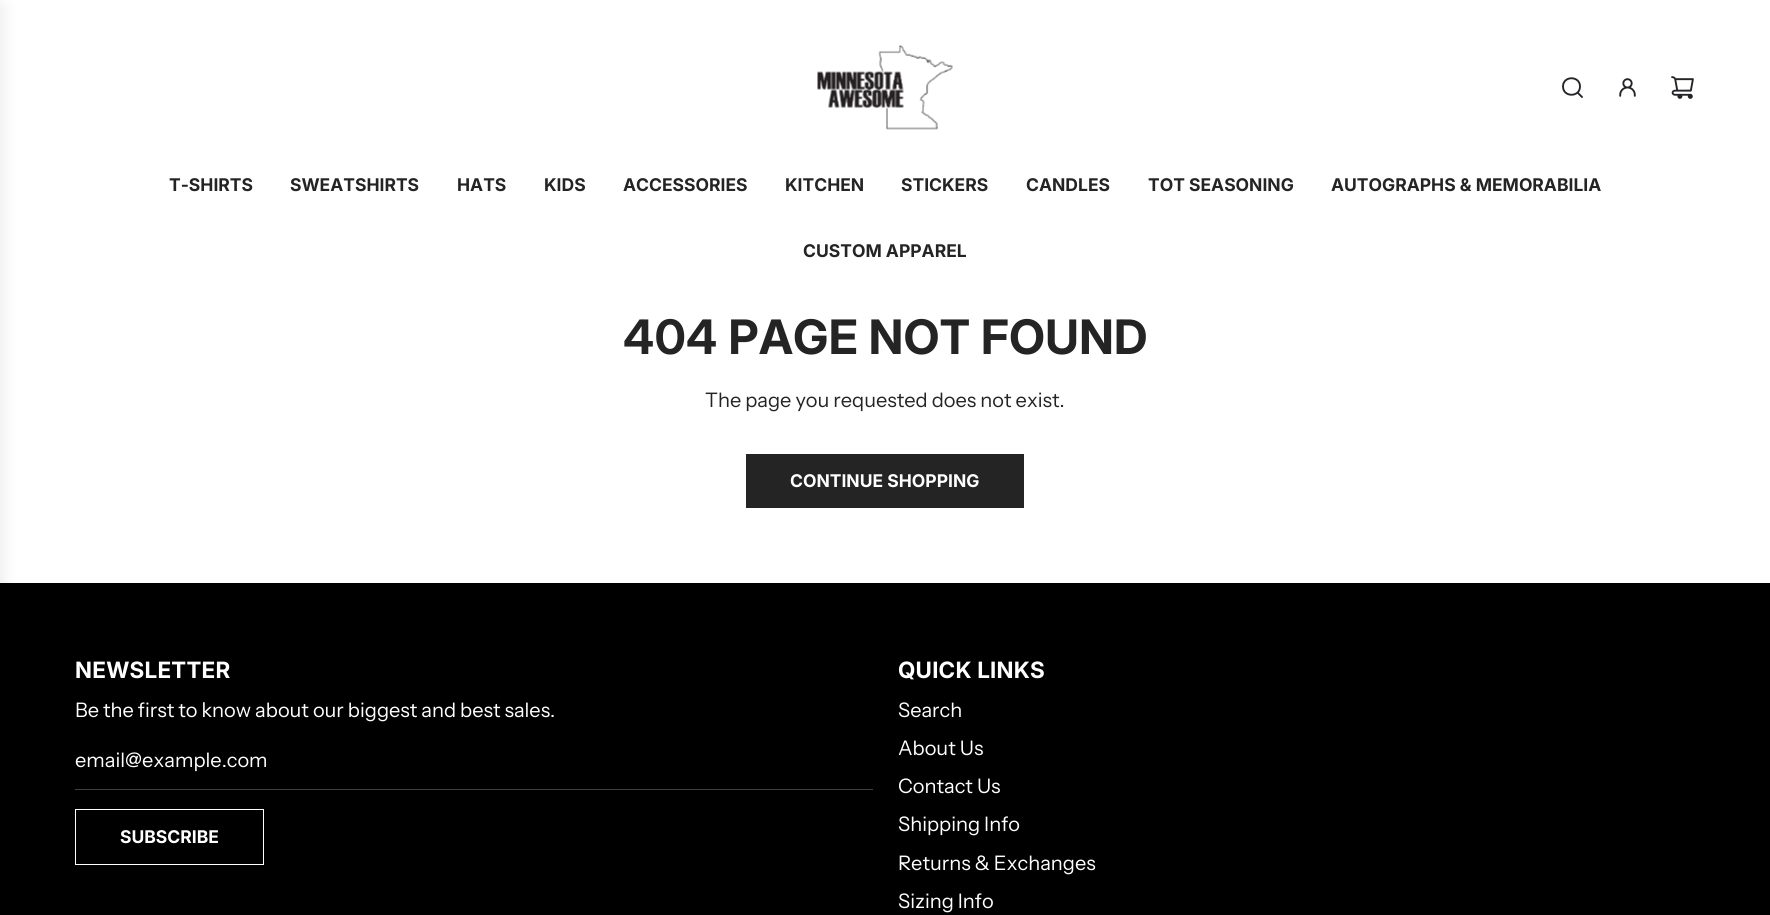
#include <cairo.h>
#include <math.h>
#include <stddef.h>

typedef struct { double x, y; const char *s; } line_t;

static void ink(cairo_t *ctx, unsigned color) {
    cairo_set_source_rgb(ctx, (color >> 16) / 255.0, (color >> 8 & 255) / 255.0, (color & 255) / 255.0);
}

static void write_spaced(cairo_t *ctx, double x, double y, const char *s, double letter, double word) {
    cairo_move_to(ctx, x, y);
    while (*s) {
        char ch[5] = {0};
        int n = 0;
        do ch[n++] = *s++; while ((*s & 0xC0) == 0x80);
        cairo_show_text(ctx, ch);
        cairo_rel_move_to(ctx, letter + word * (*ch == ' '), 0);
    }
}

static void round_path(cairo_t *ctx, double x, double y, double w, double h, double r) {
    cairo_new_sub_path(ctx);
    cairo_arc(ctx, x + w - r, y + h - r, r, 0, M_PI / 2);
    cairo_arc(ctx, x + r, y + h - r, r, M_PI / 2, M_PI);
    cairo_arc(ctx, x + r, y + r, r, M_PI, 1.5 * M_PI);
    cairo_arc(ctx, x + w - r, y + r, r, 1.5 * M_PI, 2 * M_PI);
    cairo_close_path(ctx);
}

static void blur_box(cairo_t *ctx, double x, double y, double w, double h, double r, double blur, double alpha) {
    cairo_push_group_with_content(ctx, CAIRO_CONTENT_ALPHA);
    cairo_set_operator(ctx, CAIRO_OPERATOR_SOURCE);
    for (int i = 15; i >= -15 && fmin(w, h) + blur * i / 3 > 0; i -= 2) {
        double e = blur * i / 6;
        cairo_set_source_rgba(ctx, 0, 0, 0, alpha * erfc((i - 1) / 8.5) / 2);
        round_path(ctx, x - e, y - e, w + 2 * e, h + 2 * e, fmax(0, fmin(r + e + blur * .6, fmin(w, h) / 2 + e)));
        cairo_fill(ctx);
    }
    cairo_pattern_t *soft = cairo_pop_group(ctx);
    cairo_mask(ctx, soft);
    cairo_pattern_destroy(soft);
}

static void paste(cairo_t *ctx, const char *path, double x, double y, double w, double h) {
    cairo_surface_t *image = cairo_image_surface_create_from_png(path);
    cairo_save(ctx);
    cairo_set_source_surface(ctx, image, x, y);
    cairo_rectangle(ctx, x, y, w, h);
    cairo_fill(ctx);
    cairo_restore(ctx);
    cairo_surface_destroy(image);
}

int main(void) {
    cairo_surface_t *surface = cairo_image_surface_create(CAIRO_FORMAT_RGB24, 1770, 915);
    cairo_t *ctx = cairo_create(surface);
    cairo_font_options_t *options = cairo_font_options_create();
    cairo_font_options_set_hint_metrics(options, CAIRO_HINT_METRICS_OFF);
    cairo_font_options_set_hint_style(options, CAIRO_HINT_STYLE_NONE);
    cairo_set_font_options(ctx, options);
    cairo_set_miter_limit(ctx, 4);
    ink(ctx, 0xFFFFFF);
    cairo_paint(ctx);
    ink(ctx, 0x000000);
    cairo_rectangle(ctx, 0, 583, 1770, 332);
    cairo_fill(ctx);
    ink(ctx, 0x000000);
    blur_box(ctx, -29, 6, 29, 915, 0, 9.5, 0.1);
    paste(ctx, "media/1.png", 817, 45, 136, 85);
    cairo_new_path(ctx);
    cairo_move_to(ctx, 1577.5, 92.5);
    cairo_line_to(ctx, 1582, 97);
    cairo_move_to(ctx, 1563, 86.5);
    cairo_curve_to(ctx, 1563, 97.5, 1580, 97.5, 1580, 86.5);
    cairo_curve_to(ctx, 1580, 75.5, 1563, 75.5, 1563, 86.5);
    cairo_close_path(ctx);
    ink(ctx, 0x262428);
    cairo_set_line_width(ctx, 1.9);
    cairo_set_line_cap(ctx, CAIRO_LINE_CAP_ROUND);
    cairo_set_line_join(ctx, CAIRO_LINE_JOIN_ROUND);
    cairo_stroke(ctx);
    paste(ctx, "media/2.png", 1619, 78, 17, 19);
    paste(ctx, "media/3.png", 1671, 76, 23, 23);
    cairo_select_font_face(ctx, "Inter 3", CAIRO_FONT_SLANT_NORMAL, CAIRO_FONT_WEIGHT_BOLD);
    cairo_set_font_size(ctx, 17.5);
    ink(ctx, 0x242424);
    {
        static const line_t items[] = {
            {169, 191, "T-SHIRTS"},
            {290, 191, "SWEATSHIRTS"},
            {457, 191, "HATS"},
            {544, 191, "KIDS"},
            {623, 191, "ACCESSORIES"},
            {785, 191, "KITCHEN"},
            {901, 191, "STICKERS"},
            {1026, 191, "CANDLES"},
            {1148, 191, "TOT SEASONING"},
            {1331, 191, "AUTOGRAPHS & MEMORABILIA"},
            {803, 257, "CUSTOM APPAREL"},
        };
        for (size_t i = 0; i < sizeof items / sizeof *items; i++) {
            cairo_move_to(ctx, items[i].x, items[i].y);
            cairo_show_text(ctx, items[i].s);
        }
    }
    cairo_select_font_face(ctx, "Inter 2", CAIRO_FONT_SLANT_NORMAL, CAIRO_FONT_WEIGHT_BOLD);
    cairo_set_font_size(ctx, 47.5);
    write_spaced(ctx, 623, 354, "404 PAGE NOT FOUND", 0.5, 0);
    cairo_select_font_face(ctx, "Instrument Sans", CAIRO_FONT_SLANT_NORMAL, CAIRO_FONT_WEIGHT_NORMAL);
    cairo_set_font_size(ctx, 20);
    cairo_move_to(ctx, 705, 407);
    cairo_show_text(ctx, "The page you requested does not exist.");
    cairo_rectangle(ctx, 746, 454, 278, 54);
    cairo_fill(ctx);
    cairo_select_font_face(ctx, "Inter 3", CAIRO_FONT_SLANT_NORMAL, CAIRO_FONT_WEIGHT_BOLD);
    cairo_set_font_size(ctx, 17.5);
    ink(ctx, 0xFFFFFF);
    cairo_move_to(ctx, 790, 487);
    cairo_show_text(ctx, "CONTINUE SHOPPING");
    cairo_select_font_face(ctx, "Inter", CAIRO_FONT_SLANT_NORMAL, CAIRO_FONT_WEIGHT_BOLD);
    cairo_set_font_size(ctx, 22.5);
    write_spaced(ctx, 75, 678, "NEWSLETTER", 0.25, 0);
    cairo_select_font_face(ctx, "Instrument Sans", CAIRO_FONT_SLANT_NORMAL, CAIRO_FONT_WEIGHT_NORMAL);
    cairo_set_font_size(ctx, 20);
    cairo_move_to(ctx, 75, 717);
    cairo_show_text(ctx, "Be the first to know about our biggest and best sales.");
    ink(ctx, 0x404040);
    cairo_rectangle(ctx, 75, 789, 798, 1);
    cairo_fill(ctx);
    ink(ctx, 0xFFFFFF);
    cairo_move_to(ctx, 75, 767);
    cairo_show_text(ctx, "email@example.com");
    cairo_rectangle(ctx, 75.5, 809.5, 188, 55);
    cairo_set_line_width(ctx, 1);
    cairo_set_line_cap(ctx, CAIRO_LINE_CAP_BUTT);
    cairo_set_line_join(ctx, CAIRO_LINE_JOIN_MITER);
    cairo_stroke(ctx);
    cairo_select_font_face(ctx, "Inter 3", CAIRO_FONT_SLANT_NORMAL, CAIRO_FONT_WEIGHT_BOLD);
    cairo_set_font_size(ctx, 17.5);
    cairo_move_to(ctx, 120, 843);
    cairo_show_text(ctx, "SUBSCRIBE");
    cairo_select_font_face(ctx, "Inter", CAIRO_FONT_SLANT_NORMAL, CAIRO_FONT_WEIGHT_BOLD);
    cairo_set_font_size(ctx, 22.5);
    write_spaced(ctx, 898, 678, "QUICK LINKS", 0.25, 0);
    cairo_select_font_face(ctx, "Instrument Sans", CAIRO_FONT_SLANT_NORMAL, CAIRO_FONT_WEIGHT_NORMAL);
    cairo_set_font_size(ctx, 20);
    {
        static const line_t items[] = {
            {898, 717, "Search"},
            {898, 755, "About Us"},
            {898, 793, "Contact Us"},
            {898, 831, "Shipping Info"},
            {898, 870, "Returns & Exchanges"},
            {898, 908, "Sizing Info"},
        };
        for (size_t i = 0; i < sizeof items / sizeof *items; i++) {
            cairo_move_to(ctx, items[i].x, items[i].y);
            cairo_show_text(ctx, items[i].s);
        }
    }
    cairo_surface_write_to_png(surface, "image.png");
    cairo_font_options_destroy(options);
    cairo_destroy(ctx);
    cairo_surface_destroy(surface);
    return 0;
}
